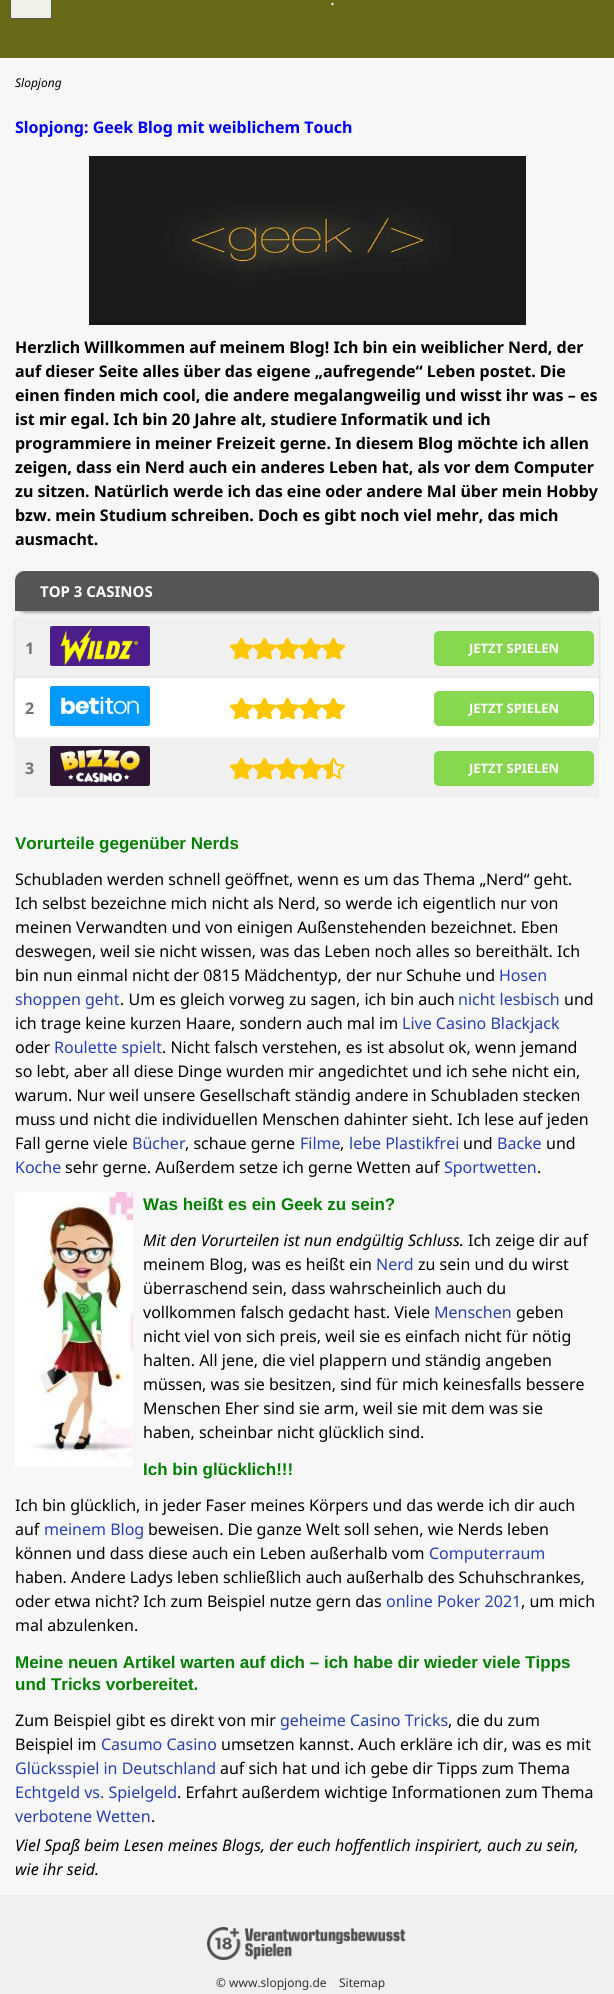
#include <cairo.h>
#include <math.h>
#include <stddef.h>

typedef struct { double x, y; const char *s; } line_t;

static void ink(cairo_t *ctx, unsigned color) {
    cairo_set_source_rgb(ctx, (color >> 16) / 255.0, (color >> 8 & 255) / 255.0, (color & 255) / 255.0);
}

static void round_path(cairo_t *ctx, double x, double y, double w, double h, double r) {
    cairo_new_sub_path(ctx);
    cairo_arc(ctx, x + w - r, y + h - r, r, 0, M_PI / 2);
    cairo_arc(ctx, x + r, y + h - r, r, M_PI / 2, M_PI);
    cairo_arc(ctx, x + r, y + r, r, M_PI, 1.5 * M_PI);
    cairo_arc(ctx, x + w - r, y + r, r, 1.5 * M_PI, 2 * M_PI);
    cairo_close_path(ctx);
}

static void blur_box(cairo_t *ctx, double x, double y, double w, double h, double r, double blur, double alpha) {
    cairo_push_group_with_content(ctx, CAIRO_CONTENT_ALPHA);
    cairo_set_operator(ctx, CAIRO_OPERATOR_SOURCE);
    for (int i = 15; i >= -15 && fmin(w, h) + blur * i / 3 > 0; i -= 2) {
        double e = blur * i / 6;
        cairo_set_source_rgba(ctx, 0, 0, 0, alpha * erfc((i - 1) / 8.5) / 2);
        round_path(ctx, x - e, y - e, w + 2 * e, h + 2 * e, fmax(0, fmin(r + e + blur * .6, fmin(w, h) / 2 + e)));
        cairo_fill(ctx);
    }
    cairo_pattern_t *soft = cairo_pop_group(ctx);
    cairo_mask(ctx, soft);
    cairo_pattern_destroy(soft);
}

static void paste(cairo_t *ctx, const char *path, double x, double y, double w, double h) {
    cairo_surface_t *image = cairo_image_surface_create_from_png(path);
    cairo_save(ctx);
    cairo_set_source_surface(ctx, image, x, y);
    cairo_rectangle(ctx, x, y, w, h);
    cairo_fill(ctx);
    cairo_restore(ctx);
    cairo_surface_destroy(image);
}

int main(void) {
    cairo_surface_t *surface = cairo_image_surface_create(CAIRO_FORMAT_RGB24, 614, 1994);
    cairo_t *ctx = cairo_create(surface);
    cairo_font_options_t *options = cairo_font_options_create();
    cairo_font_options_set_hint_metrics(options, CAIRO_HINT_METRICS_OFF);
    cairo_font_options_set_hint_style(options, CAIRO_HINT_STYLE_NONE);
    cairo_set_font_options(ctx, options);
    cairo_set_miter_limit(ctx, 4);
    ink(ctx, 0xF0F0F0);
    cairo_paint(ctx);
    ink(ctx, 0xF7F7F7);
    cairo_rectangle(ctx, 0, 58, 614, 1837);
    cairo_fill(ctx);
    ink(ctx, 0x696918);
    cairo_rectangle(ctx, 0, 0, 614, 58);
    cairo_fill(ctx);
    ink(ctx, 0xF0F0E8);
    round_path(ctx, 10.5, -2.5, 41, 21, 1.5);
    cairo_fill_preserve(ctx);
    ink(ctx, 0x555555);
    cairo_set_line_width(ctx, 1);
    cairo_stroke(ctx);
    cairo_select_font_face(ctx, "Noto Sans", CAIRO_FONT_SLANT_NORMAL, CAIRO_FONT_WEIGHT_NORMAL);
    cairo_set_font_size(ctx, 18);
    ink(ctx, 0xFFFFFF);
    cairo_move_to(ctx, 330, 5);
    cairo_show_text(ctx, ".");
    cairo_select_font_face(ctx, "Noto Sans", CAIRO_FONT_SLANT_ITALIC, CAIRO_FONT_WEIGHT_NORMAL);
    cairo_set_font_size(ctx, 12);
    ink(ctx, 0x000000);
    cairo_move_to(ctx, 15, 87);
    cairo_show_text(ctx, "Slopjong");
    cairo_select_font_face(ctx, "Noto Sans", CAIRO_FONT_SLANT_NORMAL, CAIRO_FONT_WEIGHT_BOLD);
    cairo_set_font_size(ctx, 16);
    ink(ctx, 0x0000FF);
    cairo_move_to(ctx, 15, 133);
    cairo_show_text(ctx, "Slopjong: Geek Blog mit weiblichem Touch");
    paste(ctx, "media/1.png", 89, 156, 437, 169);
    ink(ctx, 0x000000);
    {
        static const line_t items[] = {
            {15, 353, "Herzlich Willkommen auf meinem Blog! Ich bin ein weiblicher Nerd, der"},
            {15, 377, "auf dieser Seite alles über das eigene „aufregende“ Leben postet. Die"},
            {15, 401, "einen finden mich cool, die andere megalangweilig und wisst ihr was – es"},
            {15, 425, "ist mir egal. Ich bin 20 Jahre alt, studiere Informatik und ich"},
            {15, 449, "programmiere in meiner Freizeit gerne. In diesem Blog möchte ich allen"},
            {15, 473, "zeigen, dass ein Nerd auch ein anderes Leben hat, als vor dem Computer"},
            {15, 497, "zu sitzen. Natürlich werde ich das eine oder andere Mal über mein Hobby"},
            {15, 521, "bzw. mein Studium schreiben. Doch es gibt noch viel mehr, das mich"},
            {15, 545, "ausmacht."},
        };
        for (size_t i = 0; i < sizeof items / sizeof *items; i++) {
            cairo_move_to(ctx, items[i].x, items[i].y);
            cairo_show_text(ctx, items[i].s);
        }
    }
    cairo_save(ctx);
    cairo_rectangle(ctx, 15, 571, 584, 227);
    cairo_clip(ctx);
    ink(ctx, 0x000000);
    blur_box(ctx, 15, 572, 584, 40, 10, 2, 0.5);
    cairo_restore(ctx);
    ink(ctx, 0x555555);
    cairo_new_path(ctx);
    cairo_move_to(ctx, 25, 571);
    cairo_line_to(ctx, 589, 571);
    cairo_curve_to(ctx, 594.5, 571, 599, 575.5, 599, 581);
    cairo_line_to(ctx, 599, 611);
    cairo_line_to(ctx, 15, 611);
    cairo_line_to(ctx, 15, 581);
    cairo_curve_to(ctx, 15, 575.5, 19.5, 571, 25, 571);
    cairo_close_path(ctx);
    cairo_fill(ctx);
    cairo_set_font_size(ctx, 15);
    ink(ctx, 0xFFFFFF);
    cairo_move_to(ctx, 40, 597);
    cairo_show_text(ctx, "TOP 3 CASINOS");
    ink(ctx, 0x000000);
    blur_box(ctx, 15, 619, 584, 60, 0, 1.5, 0.2);
    ink(ctx, 0xF0F0F0);
    cairo_rectangle(ctx, 15, 618, 584, 60);
    cairo_fill(ctx);
    cairo_set_font_size(ctx, 16);
    ink(ctx, 0x737373);
    cairo_move_to(ctx, 25, 654);
    cairo_show_text(ctx, "1");
    paste(ctx, "media/2.png", 50, 626, 100, 40);
    paste(ctx, "media/3.png", 230, 638, 115, 21);
    paste(ctx, "media/4.png", 230, 638, 115, 21);
    ink(ctx, 0x87D84F);
    round_path(ctx, 434, 631, 160, 35, 5);
    cairo_fill(ctx);
    cairo_set_font_size(ctx, 13);
    ink(ctx, 0xFFFFFF);
    cairo_move_to(ctx, 469, 653);
    cairo_show_text(ctx, "JETZT SPIELEN");
    ink(ctx, 0x000000);
    blur_box(ctx, 15, 679, 584, 60, 0, 1.5, 0.2);
    ink(ctx, 0xFFFFFF);
    cairo_rectangle(ctx, 15, 678, 584, 60);
    cairo_fill(ctx);
    cairo_set_font_size(ctx, 16);
    ink(ctx, 0x737373);
    cairo_move_to(ctx, 25, 714);
    cairo_show_text(ctx, "2");
    paste(ctx, "media/5.png", 50, 686, 100, 40);
    paste(ctx, "media/6.png", 230, 698, 115, 21);
    paste(ctx, "media/7.png", 230, 698, 115, 21);
    ink(ctx, 0x87D84F);
    round_path(ctx, 434, 691, 160, 35, 5);
    cairo_fill(ctx);
    cairo_set_font_size(ctx, 13);
    ink(ctx, 0xFFFFFF);
    cairo_move_to(ctx, 469, 713);
    cairo_show_text(ctx, "JETZT SPIELEN");
    cairo_save(ctx);
    cairo_rectangle(ctx, 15, 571, 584, 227);
    cairo_clip(ctx);
    ink(ctx, 0x000000);
    blur_box(ctx, 15, 739, 584, 60, 0, 1.5, 0.2);
    cairo_restore(ctx);
    ink(ctx, 0xF0F0F0);
    cairo_rectangle(ctx, 15, 738, 584, 60);
    cairo_fill(ctx);
    cairo_set_font_size(ctx, 16);
    ink(ctx, 0x737373);
    cairo_move_to(ctx, 25, 774);
    cairo_show_text(ctx, "3");
    paste(ctx, "media/8.png", 50, 746, 100, 40);
    paste(ctx, "media/3.png", 230, 758, 115, 21);
    paste(ctx, "media/9.png", 230, 758, 103, 21);
    ink(ctx, 0x87D84F);
    round_path(ctx, 434, 751, 160, 35, 5);
    cairo_fill(ctx);
    cairo_set_font_size(ctx, 13);
    ink(ctx, 0xFFFFFF);
    cairo_move_to(ctx, 469, 773);
    cairo_show_text(ctx, "JETZT SPIELEN");
    cairo_select_font_face(ctx, "Liberation Sans", CAIRO_FONT_SLANT_NORMAL, CAIRO_FONT_WEIGHT_BOLD);
    cairo_set_font_size(ctx, 17);
    ink(ctx, 0x008000);
    cairo_move_to(ctx, 15, 849);
    cairo_show_text(ctx, "Vorurteile gegenüber Nerds");
    cairo_select_font_face(ctx, "Noto Sans", CAIRO_FONT_SLANT_NORMAL, CAIRO_FONT_WEIGHT_NORMAL);
    cairo_set_font_size(ctx, 16);
    ink(ctx, 0x000000);
    {
        static const line_t items[] = {
            {15, 885, "Schubladen werden schnell geöffnet, wenn es um das Thema „Nerd“ geht."},
            {15, 909, "Ich selbst bezeichne mich nicht als Nerd, so werde ich eigentlich nur von"},
            {15, 933, "meinen Verwandten und von einigen Außenstehenden bezeichnet. Eben"},
            {15, 957, "deswegen, weil sie nicht wissen, was das Leben noch alles so bereithält. Ich"},
            {15, 981, "bin nun einmal nicht der 0815 Mädchentyp, der nur Schuhe und"},
        };
        for (size_t i = 0; i < sizeof items / sizeof *items; i++) {
            cairo_move_to(ctx, items[i].x, items[i].y);
            cairo_show_text(ctx, items[i].s);
        }
    }
    ink(ctx, 0x283EB5);
    cairo_move_to(ctx, 499, 981);
    cairo_show_text(ctx, "Hosen");
    cairo_move_to(ctx, 15, 1005);
    cairo_show_text(ctx, "shoppen geht");
    ink(ctx, 0x000000);
    cairo_move_to(ctx, 120, 1005);
    cairo_show_text(ctx, ". Um es gleich vorweg zu sagen, ich bin auch");
    ink(ctx, 0x283EB5);
    cairo_move_to(ctx, 458, 1005);
    cairo_show_text(ctx, "nicht lesbisch");
    ink(ctx, 0x000000);
    cairo_move_to(ctx, 564, 1005);
    cairo_show_text(ctx, "und");
    cairo_move_to(ctx, 15, 1029);
    cairo_show_text(ctx, "ich trage keine kurzen Haare, sondern auch mal im");
    ink(ctx, 0x283EB5);
    cairo_move_to(ctx, 402, 1029);
    cairo_show_text(ctx, "Live Casino Blackjack");
    ink(ctx, 0x000000);
    cairo_move_to(ctx, 15, 1053);
    cairo_show_text(ctx, "oder");
    ink(ctx, 0x283EB5);
    cairo_move_to(ctx, 54, 1053);
    cairo_show_text(ctx, "Roulette spielt");
    ink(ctx, 0x000000);
    {
        static const line_t items[] = {
            {162, 1053, ". Nicht falsch verstehen, es ist absolut ok, wenn jemand"},
            {15, 1077, "so lebt, aber all diese Dinge wurden mir angedichtet und ich sehe nicht ein,"},
            {15, 1101, "warum. Nur weil unsere Gesellschaft ständig andere in Schubladen stecken"},
            {15, 1125, "muss und nicht die individuellen Menschen dahinter sieht. Ich lese auf jeden"},
            {15, 1149, "Fall gerne viele"},
        };
        for (size_t i = 0; i < sizeof items / sizeof *items; i++) {
            cairo_move_to(ctx, items[i].x, items[i].y);
            cairo_show_text(ctx, items[i].s);
        }
    }
    ink(ctx, 0x283EB5);
    cairo_move_to(ctx, 132, 1149);
    cairo_show_text(ctx, "Bücher");
    ink(ctx, 0x000000);
    cairo_move_to(ctx, 185, 1149);
    cairo_show_text(ctx, ", schaue gerne");
    ink(ctx, 0x283EB5);
    cairo_move_to(ctx, 300, 1149);
    cairo_show_text(ctx, "Filme");
    ink(ctx, 0x000000);
    cairo_move_to(ctx, 340, 1149);
    cairo_show_text(ctx, ",");
    ink(ctx, 0x283EB5);
    cairo_move_to(ctx, 349, 1149);
    cairo_show_text(ctx, "lebe Plastikfrei");
    ink(ctx, 0x000000);
    cairo_move_to(ctx, 463, 1149);
    cairo_show_text(ctx, "und");
    ink(ctx, 0x283EB5);
    cairo_move_to(ctx, 497, 1149);
    cairo_show_text(ctx, "Backe");
    ink(ctx, 0x000000);
    cairo_move_to(ctx, 546, 1149);
    cairo_show_text(ctx, "und");
    ink(ctx, 0x283EB5);
    cairo_move_to(ctx, 15, 1173);
    cairo_show_text(ctx, "Koche");
    ink(ctx, 0x000000);
    cairo_move_to(ctx, 65, 1173);
    cairo_show_text(ctx, "sehr gerne. Außerdem setze ich gerne Wetten auf");
    ink(ctx, 0x283EB5);
    cairo_move_to(ctx, 444, 1173);
    cairo_show_text(ctx, "Sportwetten");
    ink(ctx, 0x000000);
    cairo_move_to(ctx, 537, 1173);
    cairo_show_text(ctx, ".");
    paste(ctx, "media/10.png", 15, 1192, 118, 275);
    cairo_select_font_face(ctx, "Liberation Sans", CAIRO_FONT_SLANT_NORMAL, CAIRO_FONT_WEIGHT_BOLD);
    cairo_set_font_size(ctx, 17);
    ink(ctx, 0x008000);
    cairo_move_to(ctx, 143, 1210);
    cairo_show_text(ctx, "Was heißt es ein Geek zu sein?");
    cairo_select_font_face(ctx, "Noto Sans", CAIRO_FONT_SLANT_ITALIC, CAIRO_FONT_WEIGHT_NORMAL);
    cairo_set_font_size(ctx, 16);
    ink(ctx, 0x000000);
    cairo_move_to(ctx, 143, 1246);
    cairo_show_text(ctx, "Mit den Vorurteilen ist nun endgültig Schluss.");
    cairo_select_font_face(ctx, "Noto Sans", CAIRO_FONT_SLANT_NORMAL, CAIRO_FONT_WEIGHT_NORMAL);
    cairo_move_to(ctx, 468, 1246);
    cairo_show_text(ctx, "Ich zeige dir auf");
    cairo_move_to(ctx, 143, 1270);
    cairo_show_text(ctx, "meinem Blog, was es heißt ein");
    ink(ctx, 0x283EB5);
    cairo_move_to(ctx, 376, 1270);
    cairo_show_text(ctx, "Nerd");
    ink(ctx, 0x000000);
    {
        static const line_t items[] = {
            {418, 1270, "zu sein und du wirst"},
            {143, 1294, "überraschend sein, dass wahrscheinlich auch du"},
            {143, 1318, "vollkommen falsch gedacht hast. Viele"},
        };
        for (size_t i = 0; i < sizeof items / sizeof *items; i++) {
            cairo_move_to(ctx, items[i].x, items[i].y);
            cairo_show_text(ctx, items[i].s);
        }
    }
    ink(ctx, 0x283EB5);
    cairo_move_to(ctx, 434, 1318);
    cairo_show_text(ctx, "Menschen");
    ink(ctx, 0x000000);
    {
        static const line_t items[] = {
            {516, 1318, "geben"},
            {143, 1342, "nicht viel von sich preis, weil sie es einfach nicht für nötig"},
            {143, 1366, "halten. All jene, die viel plappern und ständig angeben"},
            {143, 1390, "müssen, was sie besitzen, sind für mich keinesfalls bessere"},
            {143, 1414, "Menschen Eher sind sie arm, weil sie mit dem was sie"},
            {143, 1438, "haben, scheinbar nicht glücklich sind."},
        };
        for (size_t i = 0; i < sizeof items / sizeof *items; i++) {
            cairo_move_to(ctx, items[i].x, items[i].y);
            cairo_show_text(ctx, items[i].s);
        }
    }
    cairo_select_font_face(ctx, "Liberation Sans", CAIRO_FONT_SLANT_NORMAL, CAIRO_FONT_WEIGHT_BOLD);
    cairo_set_font_size(ctx, 17);
    ink(ctx, 0x008000);
    cairo_move_to(ctx, 143, 1475);
    cairo_show_text(ctx, "Ich bin glücklich!!!");
    cairo_select_font_face(ctx, "Noto Sans", CAIRO_FONT_SLANT_NORMAL, CAIRO_FONT_WEIGHT_NORMAL);
    cairo_set_font_size(ctx, 16);
    ink(ctx, 0x000000);
    cairo_move_to(ctx, 15, 1511);
    cairo_show_text(ctx, "Ich bin glücklich, in jeder Faser meines Körpers und das werde ich dir auch");
    cairo_move_to(ctx, 15, 1535);
    cairo_show_text(ctx, "auf");
    ink(ctx, 0x283EB5);
    cairo_move_to(ctx, 44, 1535);
    cairo_show_text(ctx, "meinem Blog");
    ink(ctx, 0x000000);
    cairo_move_to(ctx, 148, 1535);
    cairo_show_text(ctx, "beweisen. Die ganze Welt soll sehen, wie Nerds leben");
    cairo_move_to(ctx, 15, 1559);
    cairo_show_text(ctx, "können und dass diese auch ein Leben außerhalb vom");
    ink(ctx, 0x283EB5);
    cairo_move_to(ctx, 429, 1559);
    cairo_show_text(ctx, "Computerraum");
    ink(ctx, 0x000000);
    cairo_move_to(ctx, 15, 1583);
    cairo_show_text(ctx, "haben. Andere Ladys leben schließlich auch außerhalb des Schuhschrankes,");
    cairo_move_to(ctx, 15, 1607);
    cairo_show_text(ctx, "oder etwa nicht? Ich zum Beispiel nutze gern das");
    ink(ctx, 0x283EB5);
    cairo_move_to(ctx, 386, 1607);
    cairo_show_text(ctx, "online Poker 2021");
    ink(ctx, 0x000000);
    cairo_move_to(ctx, 521, 1607);
    cairo_show_text(ctx, ", um mich");
    cairo_move_to(ctx, 15, 1631);
    cairo_show_text(ctx, "mal abzulenken.");
    cairo_select_font_face(ctx, "Liberation Sans", CAIRO_FONT_SLANT_NORMAL, CAIRO_FONT_WEIGHT_BOLD);
    cairo_set_font_size(ctx, 17);
    ink(ctx, 0x008000);
    cairo_move_to(ctx, 15, 1668);
    cairo_show_text(ctx, "Meine neuen Artikel warten auf dich – ich habe dir wieder viele Tipps");
    cairo_move_to(ctx, 15, 1690);
    cairo_show_text(ctx, "und Tricks vorbereitet.");
    cairo_select_font_face(ctx, "Noto Sans", CAIRO_FONT_SLANT_NORMAL, CAIRO_FONT_WEIGHT_NORMAL);
    cairo_set_font_size(ctx, 16);
    ink(ctx, 0x000000);
    cairo_move_to(ctx, 15, 1726);
    cairo_show_text(ctx, "Zum Beispiel gibt es direkt von mir");
    ink(ctx, 0x283EB5);
    cairo_move_to(ctx, 280, 1726);
    cairo_show_text(ctx, "geheime Casino Tricks");
    ink(ctx, 0x000000);
    cairo_move_to(ctx, 448, 1726);
    cairo_show_text(ctx, ", die du zum");
    cairo_move_to(ctx, 15, 1750);
    cairo_show_text(ctx, "Beispiel im");
    ink(ctx, 0x283EB5);
    cairo_move_to(ctx, 101, 1750);
    cairo_show_text(ctx, "Casumo Casino");
    ink(ctx, 0x000000);
    cairo_move_to(ctx, 221, 1750);
    cairo_show_text(ctx, "umsetzen kannst. Auch erkläre ich dir, was es mit");
    ink(ctx, 0x283EB5);
    cairo_move_to(ctx, 15, 1774);
    cairo_show_text(ctx, "Glücksspiel in Deutschland");
    ink(ctx, 0x000000);
    cairo_move_to(ctx, 220, 1774);
    cairo_show_text(ctx, "auf sich hat und ich gebe dir Tipps zum Thema");
    ink(ctx, 0x283EB5);
    cairo_move_to(ctx, 15, 1798);
    cairo_show_text(ctx, "Echtgeld vs. Spielgeld");
    ink(ctx, 0x000000);
    cairo_move_to(ctx, 177, 1798);
    cairo_show_text(ctx, ". Erfahrt außerdem wichtige Informationen zum Thema");
    ink(ctx, 0x283EB5);
    cairo_move_to(ctx, 15, 1822);
    cairo_show_text(ctx, "verbotene Wetten");
    ink(ctx, 0x000000);
    cairo_move_to(ctx, 151, 1822);
    cairo_show_text(ctx, ".");
    cairo_select_font_face(ctx, "Noto Sans", CAIRO_FONT_SLANT_ITALIC, CAIRO_FONT_WEIGHT_NORMAL);
    cairo_move_to(ctx, 15, 1851);
    cairo_show_text(ctx, "Viel Spaß beim Lesen meines Blogs, der euch hoffentlich inspiriert, auch zu sein,");
    cairo_move_to(ctx, 15, 1875);
    cairo_show_text(ctx, "wie ihr seid.");
    paste(ctx, "media/11.png", 207, 1927, 199, 33);
    cairo_select_font_face(ctx, "Noto Sans", CAIRO_FONT_SLANT_NORMAL, CAIRO_FONT_WEIGHT_NORMAL);
    cairo_set_font_size(ctx, 12);
    ink(ctx, 0x333333);
    cairo_move_to(ctx, 216, 1987);
    cairo_show_text(ctx, "© www.slopjong.de");
    cairo_move_to(ctx, 339, 1987);
    cairo_show_text(ctx, "Sitemap");
    cairo_surface_write_to_png(surface, "image.png");
    cairo_font_options_destroy(options);
    cairo_destroy(ctx);
    cairo_surface_destroy(surface);
    return 0;
}
